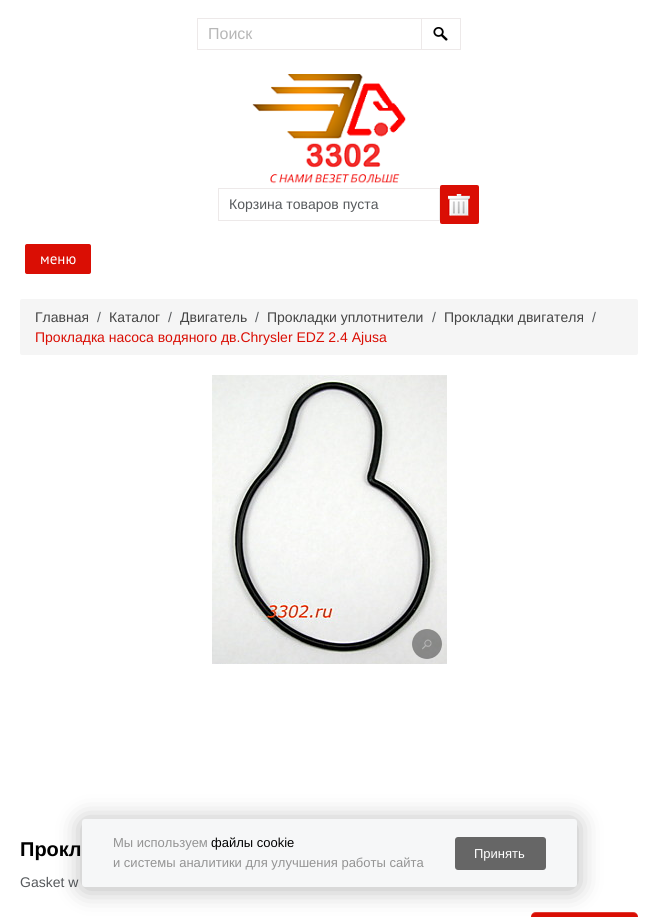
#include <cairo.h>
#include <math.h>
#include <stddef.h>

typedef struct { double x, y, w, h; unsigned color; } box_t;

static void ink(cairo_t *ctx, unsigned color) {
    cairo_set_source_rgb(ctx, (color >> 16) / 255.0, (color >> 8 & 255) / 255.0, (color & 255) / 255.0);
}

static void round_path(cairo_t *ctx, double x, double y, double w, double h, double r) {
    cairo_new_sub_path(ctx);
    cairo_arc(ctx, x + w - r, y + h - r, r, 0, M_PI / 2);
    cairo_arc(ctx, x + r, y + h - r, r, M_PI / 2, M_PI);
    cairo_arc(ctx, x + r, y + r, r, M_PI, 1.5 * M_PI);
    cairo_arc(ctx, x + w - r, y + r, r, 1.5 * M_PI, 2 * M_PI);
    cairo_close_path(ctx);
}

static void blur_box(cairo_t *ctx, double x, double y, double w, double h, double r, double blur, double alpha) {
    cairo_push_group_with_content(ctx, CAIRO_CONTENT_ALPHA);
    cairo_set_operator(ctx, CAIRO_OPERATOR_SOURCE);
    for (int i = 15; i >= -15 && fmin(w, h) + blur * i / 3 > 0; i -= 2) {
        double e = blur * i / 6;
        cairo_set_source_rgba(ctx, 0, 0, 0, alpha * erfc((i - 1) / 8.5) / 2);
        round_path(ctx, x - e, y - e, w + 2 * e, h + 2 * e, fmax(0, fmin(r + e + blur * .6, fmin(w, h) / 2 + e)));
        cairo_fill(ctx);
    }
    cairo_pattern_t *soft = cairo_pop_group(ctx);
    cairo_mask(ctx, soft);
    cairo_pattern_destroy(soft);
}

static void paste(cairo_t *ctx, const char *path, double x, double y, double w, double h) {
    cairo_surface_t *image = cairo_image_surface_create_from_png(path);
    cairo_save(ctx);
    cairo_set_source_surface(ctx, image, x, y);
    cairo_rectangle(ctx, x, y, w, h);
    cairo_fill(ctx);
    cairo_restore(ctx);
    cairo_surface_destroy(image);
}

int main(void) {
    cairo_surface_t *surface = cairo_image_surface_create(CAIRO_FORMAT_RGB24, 658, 917);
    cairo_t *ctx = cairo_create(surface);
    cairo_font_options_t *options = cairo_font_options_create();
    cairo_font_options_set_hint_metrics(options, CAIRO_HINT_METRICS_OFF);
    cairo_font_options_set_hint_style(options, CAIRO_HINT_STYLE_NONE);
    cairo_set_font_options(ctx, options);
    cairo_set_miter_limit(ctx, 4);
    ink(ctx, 0xFFFFFF);
    cairo_paint(ctx);
    cairo_rectangle(ctx, 197.5, 18.5, 224, 31);
    ink(ctx, 0xEDE9E9);
    cairo_set_line_width(ctx, 1);
    cairo_stroke(ctx);
    cairo_select_font_face(ctx, "Liberation Sans", CAIRO_FONT_SLANT_NORMAL, CAIRO_FONT_WEIGHT_NORMAL);
    cairo_set_font_size(ctx, 16);
    ink(ctx, 0xB7B7B7);
    cairo_move_to(ctx, 208, 39);
    cairo_show_text(ctx, "Поиск");
    paste(ctx, "media/1.png", 433, 27, 15, 14);
    {
        static const box_t items[] = {
            {421, 18, 40, 1, 0xEDE9E9},
            {460, 18, 1, 32, 0xEDE9E9},
            {421, 49, 40, 1, 0xEDE9E9},
        };
        for (size_t i = 0; i < sizeof items / sizeof *items; i++) {
            ink(ctx, items[i].color);
            cairo_rectangle(ctx, items[i].x, items[i].y, items[i].w, items[i].h);
            cairo_fill(ctx);
        }
    }
    paste(ctx, "media/2.png", 252, 74, 154, 110);
    cairo_rectangle(ctx, 218.5, 188.5, 221, 32);
    cairo_stroke(ctx);
    cairo_set_font_size(ctx, 14);
    ink(ctx, 0x56595C);
    cairo_move_to(ctx, 229, 209);
    cairo_show_text(ctx, "Корзина товаров пуста");
    paste(ctx, "media/3.png", 440, 185, 39, 39);
    ink(ctx, 0xDA0E04);
    round_path(ctx, 25, 244, 66, 30, 2);
    cairo_fill(ctx);
    cairo_select_font_face(ctx, "PT Sans", CAIRO_FONT_SLANT_NORMAL, CAIRO_FONT_WEIGHT_NORMAL);
    cairo_set_font_size(ctx, 15);
    ink(ctx, 0xFFFFFF);
    cairo_move_to(ctx, 40, 264);
    cairo_show_text(ctx, "меню");
    ink(ctx, 0xF5F5F5);
    round_path(ctx, 20, 299, 618, 56, 2);
    cairo_fill(ctx);
    cairo_select_font_face(ctx, "Liberation Sans", CAIRO_FONT_SLANT_NORMAL, CAIRO_FONT_WEIGHT_NORMAL);
    cairo_set_font_size(ctx, 14);
    ink(ctx, 0x444444);
    cairo_move_to(ctx, 35, 322);
    cairo_show_text(ctx, "Главная");
    ink(ctx, 0x56595C);
    cairo_move_to(ctx, 97, 322);
    cairo_show_text(ctx, "/");
    ink(ctx, 0x444444);
    cairo_move_to(ctx, 109, 322);
    cairo_show_text(ctx, "Каталог");
    ink(ctx, 0x56595C);
    cairo_move_to(ctx, 168, 322);
    cairo_show_text(ctx, "/");
    ink(ctx, 0x444444);
    cairo_move_to(ctx, 180, 322);
    cairo_show_text(ctx, "Двигатель");
    ink(ctx, 0x56595C);
    cairo_move_to(ctx, 255, 322);
    cairo_show_text(ctx, "/");
    ink(ctx, 0x444444);
    cairo_move_to(ctx, 267, 322);
    cairo_show_text(ctx, "Прокладки уплотнители");
    ink(ctx, 0x56595C);
    cairo_move_to(ctx, 432, 322);
    cairo_show_text(ctx, "/");
    ink(ctx, 0x444444);
    cairo_move_to(ctx, 444, 322);
    cairo_show_text(ctx, "Прокладки двигателя");
    ink(ctx, 0x56595C);
    cairo_move_to(ctx, 592, 322);
    cairo_show_text(ctx, "/");
    ink(ctx, 0xDA0E04);
    cairo_move_to(ctx, 35, 342);
    cairo_show_text(ctx, "Прокладка насоса водяного дв.Chrysler EDZ 2.4 Ajusa");
    paste(ctx, "media/4.png", 212, 375, 235, 289);
    cairo_set_source_rgba(ctx, 0, 0, 0, 0.3);
    cairo_arc(ctx, 427, 644, 15, 0, 2 * M_PI);
    cairo_fill(ctx);
    paste(ctx, "media/5.png", 412, 629, 30, 30);
    cairo_select_font_face(ctx, "Liberation Sans", CAIRO_FONT_SLANT_NORMAL, CAIRO_FONT_WEIGHT_BOLD);
    cairo_set_font_size(ctx, 20);
    ink(ctx, 0x000000);
    cairo_move_to(ctx, 20, 856);
    cairo_show_text(ctx, "Прокл");
    cairo_select_font_face(ctx, "Liberation Sans", CAIRO_FONT_SLANT_NORMAL, CAIRO_FONT_WEIGHT_NORMAL);
    cairo_set_font_size(ctx, 14);
    ink(ctx, 0x56595C);
    cairo_move_to(ctx, 20, 887);
    cairo_show_text(ctx, "Gasket w");
    ink(ctx, 0xDA0E04);
    round_path(ctx, 531, 912, 107, 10, 5);
    cairo_fill(ctx);
    cairo_set_source_rgba(ctx, 1, 1, 1, 0.2);
    cairo_new_path(ctx);
    cairo_move_to(ctx, 536, 913);
    cairo_line_to(ctx, 633, 913);
    cairo_curve_to(ctx, 636, 913, 638, 915, 638, 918);
    cairo_curve_to(ctx, 638, 908, 622, 912, 617, 912);
    cairo_line_to(ctx, 552, 912);
    cairo_curve_to(ctx, 547, 912, 531, 908, 531, 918);
    cairo_curve_to(ctx, 531, 915, 533, 913, 536, 913);
    cairo_close_path(ctx);
    cairo_fill(ctx);
    ink(ctx, 0x000000);
    blur_box(ctx, 82, 821, 495, 68, 3, 12.5, 0.3);
    ink(ctx, 0xF6F7F8);
    round_path(ctx, 82, 819, 495, 68, 3);
    cairo_fill(ctx);
    cairo_set_font_size(ctx, 13);
    ink(ctx, 0x939393);
    cairo_move_to(ctx, 113, 847);
    cairo_show_text(ctx, "Мы используем");
    ink(ctx, 0x000000);
    cairo_move_to(ctx, 211, 847);
    cairo_show_text(ctx, "файлы cookie");
    ink(ctx, 0x939393);
    cairo_move_to(ctx, 113, 867);
    cairo_show_text(ctx, "и системы аналитики для улучшения работы сайта");
    ink(ctx, 0x666666);
    round_path(ctx, 455, 837, 91, 33, 3);
    cairo_fill(ctx);
    ink(ctx, 0xFFFFFF);
    cairo_move_to(ctx, 474, 858);
    cairo_show_text(ctx, "Принять");
    cairo_surface_write_to_png(surface, "image.png");
    cairo_font_options_destroy(options);
    cairo_destroy(ctx);
    cairo_surface_destroy(surface);
    return 0;
}
